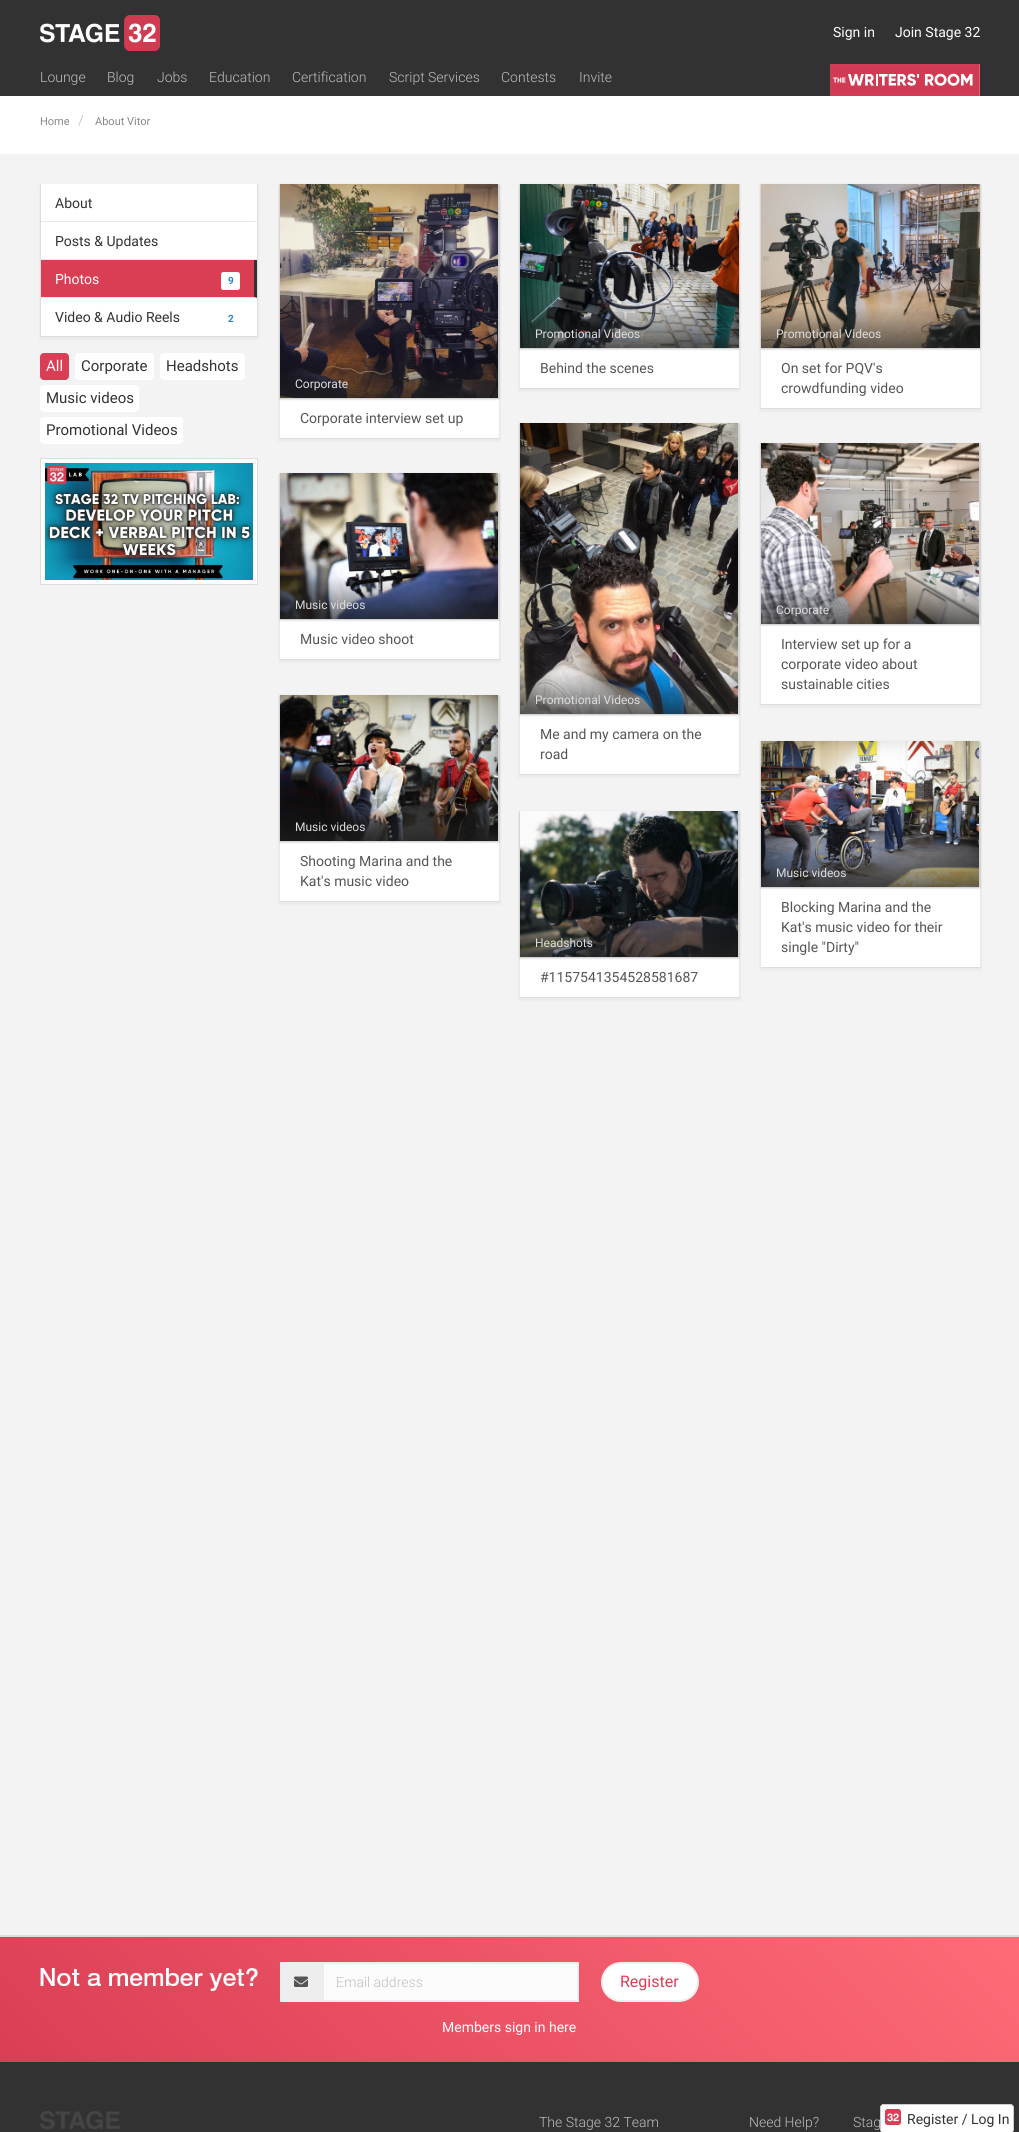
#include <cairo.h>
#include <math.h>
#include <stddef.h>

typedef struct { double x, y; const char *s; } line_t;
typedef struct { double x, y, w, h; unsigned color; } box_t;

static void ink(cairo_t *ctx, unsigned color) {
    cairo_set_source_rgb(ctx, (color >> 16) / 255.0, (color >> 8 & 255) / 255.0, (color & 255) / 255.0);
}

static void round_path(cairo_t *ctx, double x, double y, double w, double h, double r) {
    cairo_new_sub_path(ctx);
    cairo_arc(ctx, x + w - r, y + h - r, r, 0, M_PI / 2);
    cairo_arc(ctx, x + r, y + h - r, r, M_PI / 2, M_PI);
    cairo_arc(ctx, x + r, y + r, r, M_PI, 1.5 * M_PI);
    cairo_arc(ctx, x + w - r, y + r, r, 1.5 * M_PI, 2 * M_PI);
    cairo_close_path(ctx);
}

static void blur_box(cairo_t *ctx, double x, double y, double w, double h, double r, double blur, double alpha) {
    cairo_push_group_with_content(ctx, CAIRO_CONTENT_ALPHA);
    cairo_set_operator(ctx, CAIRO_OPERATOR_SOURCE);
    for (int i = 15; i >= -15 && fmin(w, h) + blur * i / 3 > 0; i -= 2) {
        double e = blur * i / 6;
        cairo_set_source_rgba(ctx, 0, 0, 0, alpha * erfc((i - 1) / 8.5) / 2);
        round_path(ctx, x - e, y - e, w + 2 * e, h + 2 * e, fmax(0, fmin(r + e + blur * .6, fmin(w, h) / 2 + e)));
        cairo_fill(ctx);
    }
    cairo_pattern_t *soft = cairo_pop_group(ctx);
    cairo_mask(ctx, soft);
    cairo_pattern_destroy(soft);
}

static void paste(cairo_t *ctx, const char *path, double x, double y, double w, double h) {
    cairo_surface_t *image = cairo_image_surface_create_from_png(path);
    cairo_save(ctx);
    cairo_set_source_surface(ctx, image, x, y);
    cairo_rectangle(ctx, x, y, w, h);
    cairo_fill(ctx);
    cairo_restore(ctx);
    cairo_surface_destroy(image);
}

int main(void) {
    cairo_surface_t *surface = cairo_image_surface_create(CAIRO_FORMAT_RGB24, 1019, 2132);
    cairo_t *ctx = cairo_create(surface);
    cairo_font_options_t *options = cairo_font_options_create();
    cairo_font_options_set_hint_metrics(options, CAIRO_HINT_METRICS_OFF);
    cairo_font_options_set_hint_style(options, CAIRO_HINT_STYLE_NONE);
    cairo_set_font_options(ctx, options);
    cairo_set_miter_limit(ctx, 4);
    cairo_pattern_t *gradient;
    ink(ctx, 0xF3F3F3);
    cairo_paint(ctx);
    ink(ctx, 0x323232);
    cairo_rectangle(ctx, 0, 0, 1019, 96);
    cairo_fill(ctx);
    paste(ctx, "media/1.png", 40, 15, 120, 36);
    cairo_select_font_face(ctx, "Roboto", CAIRO_FONT_SLANT_NORMAL, CAIRO_FONT_WEIGHT_NORMAL);
    cairo_set_font_size(ctx, 14);
    ink(ctx, 0xFFFFFF);
    cairo_move_to(ctx, 833, 37);
    cairo_show_text(ctx, "Sign in");
    cairo_move_to(ctx, 895, 37);
    cairo_show_text(ctx, "Join Stage 32");
    cairo_select_font_face(ctx, "Roboto Light", CAIRO_FONT_SLANT_NORMAL, CAIRO_FONT_WEIGHT_NORMAL);
    ink(ctx, 0xBEBEBE);
    {
        static const line_t items[] = {
            {40, 82, "Lounge"},
            {107, 82, "Blog"},
            {157, 82, "Jobs"},
            {209, 82, "Education"},
            {292, 82, "Certification"},
            {389, 82, "Script Services"},
            {501, 82, "Contests"},
            {579, 82, "Invite"},
        };
        for (size_t i = 0; i < sizeof items / sizeof *items; i++) {
            cairo_move_to(ctx, items[i].x, items[i].y);
            cairo_show_text(ctx, items[i].s);
        }
    }
    paste(ctx, "media/2.png", 830, 64, 150, 32);
    ink(ctx, 0xFFFFFF);
    cairo_rectangle(ctx, 0, 96, 1019, 58);
    cairo_fill(ctx);
    cairo_select_font_face(ctx, "Roboto", CAIRO_FONT_SLANT_NORMAL, CAIRO_FONT_WEIGHT_NORMAL);
    cairo_set_font_size(ctx, 11);
    ink(ctx, 0x888888);
    cairo_move_to(ctx, 40, 125);
    cairo_show_text(ctx, "Home");
    cairo_set_font_size(ctx, 14);
    ink(ctx, 0xCCCCCC);
    cairo_move_to(ctx, 78, 125);
    cairo_show_text(ctx, "/");
    cairo_set_font_size(ctx, 11);
    ink(ctx, 0x888888);
    cairo_move_to(ctx, 95, 125);
    cairo_show_text(ctx, "About Vitor");
    ink(ctx, 0x000000);
    blur_box(ctx, 40, 186, 218, 153, 0, 1.5, 0.05);
    {
        static const box_t items[] = {
            {41, 184, 216, 152, 0xFFFFFF},
            {257, 184, 1, 153, 0xDDDDDD},
            {40, 336, 218, 1, 0xDDDDDD},
            {40, 184, 1, 153, 0xDDDDDD},
        };
        for (size_t i = 0; i < sizeof items / sizeof *items; i++) {
            ink(ctx, items[i].color);
            cairo_rectangle(ctx, items[i].x, items[i].y, items[i].w, items[i].h);
            cairo_fill(ctx);
        }
    }
    ink(ctx, 0xE9E9E9);
    cairo_new_path(ctx);
    cairo_move_to(ctx, 257, 222);
    cairo_line_to(ctx, 41, 222);
    cairo_line_to(ctx, 41, 221);
    cairo_line_to(ctx, 254, 221);
    cairo_close_path(ctx);
    cairo_fill(ctx);
    cairo_set_font_size(ctx, 14);
    ink(ctx, 0x323232);
    cairo_move_to(ctx, 55, 208);
    cairo_show_text(ctx, "About");
    ink(ctx, 0xE9E9E9);
    cairo_new_path(ctx);
    cairo_move_to(ctx, 257, 260);
    cairo_line_to(ctx, 41, 260);
    cairo_line_to(ctx, 41, 259);
    cairo_line_to(ctx, 254, 259);
    cairo_close_path(ctx);
    cairo_fill(ctx);
    ink(ctx, 0x323232);
    cairo_move_to(ctx, 55, 246);
    cairo_show_text(ctx, "Posts & Updates");
    ink(ctx, 0xDA3E55);
    cairo_rectangle(ctx, 41, 260, 216, 38);
    cairo_fill(ctx);
    ink(ctx, 0x323232);
    cairo_new_path(ctx);
    cairo_move_to(ctx, 257, 260);
    cairo_line_to(ctx, 257, 298);
    cairo_line_to(ctx, 254, 297);
    cairo_line_to(ctx, 254, 260);
    cairo_close_path(ctx);
    cairo_fill(ctx);
    ink(ctx, 0xE9E9E9);
    cairo_new_path(ctx);
    cairo_move_to(ctx, 257, 298);
    cairo_line_to(ctx, 41, 298);
    cairo_line_to(ctx, 41, 297);
    cairo_line_to(ctx, 254, 297);
    cairo_close_path(ctx);
    cairo_fill(ctx);
    ink(ctx, 0xFFFFFF);
    cairo_move_to(ctx, 55, 284);
    cairo_show_text(ctx, "Photos");
    round_path(ctx, 221, 272, 19, 18, 2.5);
    cairo_fill(ctx);
    cairo_select_font_face(ctx, "Roboto", CAIRO_FONT_SLANT_NORMAL, CAIRO_FONT_WEIGHT_BOLD);
    cairo_set_font_size(ctx, 10);
    ink(ctx, 0x2884C6);
    cairo_move_to(ctx, 228, 284);
    cairo_show_text(ctx, "9");
    cairo_select_font_face(ctx, "Roboto", CAIRO_FONT_SLANT_NORMAL, CAIRO_FONT_WEIGHT_NORMAL);
    cairo_set_font_size(ctx, 14);
    ink(ctx, 0x323232);
    cairo_move_to(ctx, 55, 322);
    cairo_show_text(ctx, "Video & Audio Reels");
    cairo_select_font_face(ctx, "Roboto", CAIRO_FONT_SLANT_NORMAL, CAIRO_FONT_WEIGHT_BOLD);
    cairo_set_font_size(ctx, 10);
    ink(ctx, 0x2884C6);
    cairo_move_to(ctx, 228, 322);
    cairo_show_text(ctx, "2");
    ink(ctx, 0xDA3E55);
    round_path(ctx, 40, 353, 29, 27, 4);
    cairo_fill(ctx);
    cairo_select_font_face(ctx, "Roboto", CAIRO_FONT_SLANT_NORMAL, CAIRO_FONT_WEIGHT_NORMAL);
    cairo_set_font_size(ctx, 15);
    ink(ctx, 0xFFFFFF);
    cairo_move_to(ctx, 46, 371);
    cairo_show_text(ctx, "All");
    round_path(ctx, 75, 353, 79, 27, 4);
    cairo_fill(ctx);
    ink(ctx, 0x323232);
    cairo_move_to(ctx, 81, 371);
    cairo_show_text(ctx, "Corporate");
    ink(ctx, 0xFFFFFF);
    round_path(ctx, 160, 353, 85, 27, 4);
    cairo_fill(ctx);
    ink(ctx, 0x323232);
    cairo_move_to(ctx, 166, 371);
    cairo_show_text(ctx, "Headshots");
    ink(ctx, 0xFFFFFF);
    round_path(ctx, 40, 385, 99, 27, 4);
    cairo_fill(ctx);
    ink(ctx, 0x323232);
    cairo_move_to(ctx, 46, 403);
    cairo_show_text(ctx, "Music videos");
    ink(ctx, 0xFFFFFF);
    round_path(ctx, 40, 417, 143, 27, 4);
    cairo_fill(ctx);
    ink(ctx, 0x323232);
    cairo_move_to(ctx, 46, 435);
    cairo_show_text(ctx, "Promotional Videos");
    ink(ctx, 0xFFFFFF);
    cairo_rectangle(ctx, 40.5, 458.5, 217, 126);
    cairo_fill_preserve(ctx);
    ink(ctx, 0xDDDDDD);
    cairo_set_line_width(ctx, 1);
    cairo_stroke(ctx);
    paste(ctx, "media/3.png", 45, 463, 208, 117);
    ink(ctx, 0x000000);
    blur_box(ctx, 519, 186, 221, 205, 0, 1.5, 0.05);
    {
        static const box_t items[] = {
            {520, 348, 219, 40, 0xFFFFFF},
            {739, 184, 1, 205, 0xE9E9E9},
            {519, 388, 221, 1, 0xDDDDDD},
            {519, 184, 1, 205, 0xE9E9E9},
        };
        for (size_t i = 0; i < sizeof items / sizeof *items; i++) {
            ink(ctx, items[i].color);
            cairo_rectangle(ctx, items[i].x, items[i].y, items[i].w, items[i].h);
            cairo_fill(ctx);
        }
    }
    ink(ctx, 0x000000);
    blur_box(ctx, 520, 185, 219, 164, 0, 1, 0.25);
    paste(ctx, "media/4.png", 520, 184, 219, 164);
    cairo_set_font_size(ctx, 12);
    ink(ctx, 0xDDDDDD);
    cairo_move_to(ctx, 535, 338);
    cairo_show_text(ctx, "Promotional Videos");
    cairo_set_font_size(ctx, 14);
    ink(ctx, 0x555555);
    cairo_move_to(ctx, 540, 373);
    cairo_show_text(ctx, "Behind the scenes");
    ink(ctx, 0x000000);
    blur_box(ctx, 760, 186, 221, 225, 0, 1.5, 0.05);
    {
        static const box_t items[] = {
            {761, 348, 219, 60, 0xFFFFFF},
            {980, 184, 1, 225, 0xE9E9E9},
            {760, 408, 221, 1, 0xDDDDDD},
            {760, 184, 1, 225, 0xE9E9E9},
        };
        for (size_t i = 0; i < sizeof items / sizeof *items; i++) {
            ink(ctx, items[i].color);
            cairo_rectangle(ctx, items[i].x, items[i].y, items[i].w, items[i].h);
            cairo_fill(ctx);
        }
    }
    ink(ctx, 0x000000);
    blur_box(ctx, 761, 185, 219, 164, 0, 1, 0.25);
    paste(ctx, "media/5.png", 761, 184, 219, 164);
    cairo_set_font_size(ctx, 12);
    ink(ctx, 0xDDDDDD);
    cairo_move_to(ctx, 776, 338);
    cairo_show_text(ctx, "Promotional Videos");
    cairo_set_font_size(ctx, 14);
    ink(ctx, 0x555555);
    cairo_move_to(ctx, 781, 373);
    cairo_show_text(ctx, "On set for PQV's");
    cairo_move_to(ctx, 781, 393);
    cairo_show_text(ctx, "crowdfunding video");
    ink(ctx, 0x000000);
    blur_box(ctx, 279, 186, 221, 255, 0, 1.5, 0.05);
    {
        static const box_t items[] = {
            {280, 184, 219, 254, 0xFFFFFF},
            {499, 184, 1, 255, 0xE9E9E9},
            {279, 438, 221, 1, 0xDDDDDD},
            {279, 184, 1, 255, 0xE9E9E9},
        };
        for (size_t i = 0; i < sizeof items / sizeof *items; i++) {
            ink(ctx, items[i].color);
            cairo_rectangle(ctx, items[i].x, items[i].y, items[i].w, items[i].h);
            cairo_fill(ctx);
        }
    }
    ink(ctx, 0x000000);
    blur_box(ctx, 280, 185, 219, 214, 0, 1, 0.25);
    paste(ctx, "media/6.png", 280, 184, 218, 214);
    cairo_set_font_size(ctx, 12);
    ink(ctx, 0xDDDDDD);
    cairo_move_to(ctx, 295, 388);
    cairo_show_text(ctx, "Corporate");
    cairo_set_font_size(ctx, 14);
    ink(ctx, 0x555555);
    cairo_move_to(ctx, 300, 423);
    cairo_show_text(ctx, "Corporate interview set up");
    ink(ctx, 0x000000);
    blur_box(ctx, 279, 475, 221, 187, 0, 1.5, 0.05);
    {
        static const box_t items[] = {
            {280, 473, 219, 186, 0xFFFFFF},
            {499, 473, 1, 187, 0xE9E9E9},
            {279, 659, 221, 1, 0xDDDDDD},
            {279, 473, 1, 187, 0xE9E9E9},
        };
        for (size_t i = 0; i < sizeof items / sizeof *items; i++) {
            ink(ctx, items[i].color);
            cairo_rectangle(ctx, items[i].x, items[i].y, items[i].w, items[i].h);
            cairo_fill(ctx);
        }
    }
    ink(ctx, 0x000000);
    blur_box(ctx, 280, 474, 219, 146, 0, 1, 0.25);
    paste(ctx, "media/7.png", 280, 473, 218, 146);
    cairo_set_font_size(ctx, 12);
    ink(ctx, 0xDDDDDD);
    cairo_move_to(ctx, 295, 609);
    cairo_show_text(ctx, "Music videos");
    cairo_set_font_size(ctx, 14);
    ink(ctx, 0x555555);
    cairo_move_to(ctx, 300, 644);
    cairo_show_text(ctx, "Music video shoot");
    ink(ctx, 0x000000);
    blur_box(ctx, 760, 445, 221, 262, 0, 1.5, 0.05);
    {
        static const box_t items[] = {
            {761, 443, 219, 261, 0xFFFFFF},
            {980, 443, 1, 262, 0xE9E9E9},
            {760, 704, 221, 1, 0xDDDDDD},
            {760, 443, 1, 262, 0xE9E9E9},
        };
        for (size_t i = 0; i < sizeof items / sizeof *items; i++) {
            ink(ctx, items[i].color);
            cairo_rectangle(ctx, items[i].x, items[i].y, items[i].w, items[i].h);
            cairo_fill(ctx);
        }
    }
    ink(ctx, 0x000000);
    blur_box(ctx, 761, 444, 219, 181, 0, 1, 0.25);
    paste(ctx, "media/8.png", 761, 443, 218, 181);
    cairo_set_font_size(ctx, 12);
    ink(ctx, 0xDDDDDD);
    cairo_move_to(ctx, 776, 614);
    cairo_show_text(ctx, "Corporate");
    cairo_set_font_size(ctx, 14);
    ink(ctx, 0x555555);
    {
        static const line_t items[] = {
            {781, 649, "Interview set up for a"},
            {781, 669, "corporate video about"},
            {781, 689, "sustainable cities"},
        };
        for (size_t i = 0; i < sizeof items / sizeof *items; i++) {
            cairo_move_to(ctx, items[i].x, items[i].y);
            cairo_show_text(ctx, items[i].s);
        }
    }
    ink(ctx, 0x000000);
    blur_box(ctx, 519, 425, 221, 352, 0, 1.5, 0.05);
    {
        static const box_t items[] = {
            {520, 423, 219, 351, 0xFFFFFF},
            {739, 423, 1, 352, 0xE9E9E9},
            {519, 774, 221, 1, 0xDDDDDD},
            {519, 423, 1, 352, 0xE9E9E9},
        };
        for (size_t i = 0; i < sizeof items / sizeof *items; i++) {
            ink(ctx, items[i].color);
            cairo_rectangle(ctx, items[i].x, items[i].y, items[i].w, items[i].h);
            cairo_fill(ctx);
        }
    }
    ink(ctx, 0x000000);
    blur_box(ctx, 520, 424, 219, 291, 0, 1, 0.25);
    paste(ctx, "media/9.png", 520, 423, 218, 291);
    cairo_set_font_size(ctx, 12);
    ink(ctx, 0xDDDDDD);
    cairo_move_to(ctx, 535, 704);
    cairo_show_text(ctx, "Promotional Videos");
    cairo_set_font_size(ctx, 14);
    ink(ctx, 0x555555);
    cairo_move_to(ctx, 540, 739);
    cairo_show_text(ctx, "Me and my camera on the");
    cairo_move_to(ctx, 540, 759);
    cairo_show_text(ctx, "road");
    ink(ctx, 0x000000);
    blur_box(ctx, 279, 697, 221, 207, 0, 1.5, 0.05);
    {
        static const box_t items[] = {
            {280, 695, 219, 206, 0xFFFFFF},
            {499, 695, 1, 207, 0xE9E9E9},
            {279, 901, 221, 1, 0xDDDDDD},
            {279, 695, 1, 207, 0xE9E9E9},
        };
        for (size_t i = 0; i < sizeof items / sizeof *items; i++) {
            ink(ctx, items[i].color);
            cairo_rectangle(ctx, items[i].x, items[i].y, items[i].w, items[i].h);
            cairo_fill(ctx);
        }
    }
    ink(ctx, 0x000000);
    blur_box(ctx, 280, 696, 219, 146, 0, 1, 0.25);
    paste(ctx, "media/10.png", 280, 695, 218, 146);
    cairo_set_font_size(ctx, 12);
    ink(ctx, 0xDDDDDD);
    cairo_move_to(ctx, 295, 831);
    cairo_show_text(ctx, "Music videos");
    cairo_set_font_size(ctx, 14);
    ink(ctx, 0x555555);
    cairo_move_to(ctx, 300, 866);
    cairo_show_text(ctx, "Shooting Marina and the");
    cairo_move_to(ctx, 300, 886);
    cairo_show_text(ctx, "Kat's music video");
    ink(ctx, 0x000000);
    blur_box(ctx, 760, 743, 221, 227, 0, 1.5, 0.05);
    {
        static const box_t items[] = {
            {761, 741, 219, 226, 0xFFFFFF},
            {980, 741, 1, 227, 0xE9E9E9},
            {760, 967, 221, 1, 0xDDDDDD},
            {760, 741, 1, 227, 0xE9E9E9},
        };
        for (size_t i = 0; i < sizeof items / sizeof *items; i++) {
            ink(ctx, items[i].color);
            cairo_rectangle(ctx, items[i].x, items[i].y, items[i].w, items[i].h);
            cairo_fill(ctx);
        }
    }
    ink(ctx, 0x000000);
    blur_box(ctx, 761, 742, 219, 146, 0, 1, 0.25);
    paste(ctx, "media/11.png", 761, 741, 218, 146);
    cairo_set_font_size(ctx, 12);
    ink(ctx, 0xDDDDDD);
    cairo_move_to(ctx, 776, 877);
    cairo_show_text(ctx, "Music videos");
    cairo_set_font_size(ctx, 14);
    ink(ctx, 0x555555);
    {
        static const line_t items[] = {
            {781, 912, "Blocking Marina and the"},
            {781, 932, "Kat's music video for their"},
            {781, 952, "single \"Dirty\""},
        };
        for (size_t i = 0; i < sizeof items / sizeof *items; i++) {
            cairo_move_to(ctx, items[i].x, items[i].y);
            cairo_show_text(ctx, items[i].s);
        }
    }
    ink(ctx, 0x000000);
    blur_box(ctx, 519, 813, 221, 187, 0, 1.5, 0.05);
    {
        static const box_t items[] = {
            {520, 811, 219, 186, 0xFFFFFF},
            {739, 811, 1, 187, 0xE9E9E9},
            {519, 997, 221, 1, 0xDDDDDD},
            {519, 811, 1, 187, 0xE9E9E9},
        };
        for (size_t i = 0; i < sizeof items / sizeof *items; i++) {
            ink(ctx, items[i].color);
            cairo_rectangle(ctx, items[i].x, items[i].y, items[i].w, items[i].h);
            cairo_fill(ctx);
        }
    }
    ink(ctx, 0x000000);
    blur_box(ctx, 520, 812, 219, 146, 0, 1, 0.25);
    paste(ctx, "media/12.png", 520, 811, 218, 146);
    cairo_set_font_size(ctx, 12);
    ink(ctx, 0xDDDDDD);
    cairo_move_to(ctx, 535, 947);
    cairo_show_text(ctx, "Headshots");
    cairo_set_font_size(ctx, 14);
    ink(ctx, 0x555555);
    cairo_move_to(ctx, 540, 982);
    cairo_show_text(ctx, "#1157541354528581687");
    gradient = cairo_pattern_create_linear(224, 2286, 796, 1714);
    cairo_pattern_add_color_stop_rgba(gradient, 0, 0.855, 0.243, 0.333, 1);
    cairo_pattern_add_color_stop_rgba(gradient, 1, 1, 0.42, 0.467, 1);
    cairo_set_source(ctx, gradient);
    cairo_pattern_destroy(gradient);
    cairo_rectangle(ctx, 0, 1937, 1019, 125);
    cairo_fill(ctx);
    ink(ctx, 0xDDDDDD);
    cairo_rectangle(ctx, 0, 1935, 1019, 2);
    cairo_fill(ctx);
    paste(ctx, "media/13.png", 40, 1968, 218, 23);
    ink(ctx, 0xEEEEEE);
    cairo_rectangle(ctx, 280, 1962, 42, 40);
    cairo_fill(ctx);
    paste(ctx, "media/14.png", 294, 1976, 14, 11);
    ink(ctx, 0xFCFCFC);
    cairo_rectangle(ctx, 323, 1963, 255, 38);
    cairo_fill_preserve(ctx);
    ink(ctx, 0xEDEDED);
    cairo_set_line_width(ctx, 2);
    cairo_stroke(ctx);
    cairo_select_font_face(ctx, "Roboto Light", CAIRO_FONT_SLANT_NORMAL, CAIRO_FONT_WEIGHT_NORMAL);
    ink(ctx, 0xBEBEBE);
    cairo_move_to(ctx, 336, 1987);
    cairo_show_text(ctx, "Email address");
    ink(ctx, 0xFFFFFF);
    round_path(ctx, 602, 1963, 96, 38, 19);
    cairo_fill_preserve(ctx);
    ink(ctx, 0xEEEEEE);
    cairo_stroke(ctx);
    cairo_select_font_face(ctx, "Roboto", CAIRO_FONT_SLANT_NORMAL, CAIRO_FONT_WEIGHT_NORMAL);
    cairo_set_font_size(ctx, 16);
    ink(ctx, 0xDA3E55);
    cairo_move_to(ctx, 620, 1987);
    cairo_show_text(ctx, "Register");
    cairo_set_font_size(ctx, 14);
    ink(ctx, 0xFFFFFF);
    cairo_move_to(ctx, 442, 2032);
    cairo_show_text(ctx, "Members sign in here");
    ink(ctx, 0x323232);
    cairo_rectangle(ctx, 0, 2062, 1019, 70);
    cairo_fill(ctx);
    paste(ctx, "media/15.png", 40, 2111, 80, 19);
    cairo_select_font_face(ctx, "Roboto Light", CAIRO_FONT_SLANT_NORMAL, CAIRO_FONT_WEIGHT_NORMAL);
    ink(ctx, 0xBEBEBE);
    {
        static const line_t items[] = {
            {539, 2127, "The Stage 32 Team"},
            {749, 2127, "Need Help?"},
            {853, 2127, "Stag"},
        };
        for (size_t i = 0; i < sizeof items / sizeof *items; i++) {
            cairo_move_to(ctx, items[i].x, items[i].y);
            cairo_show_text(ctx, items[i].s);
        }
    }
    ink(ctx, 0xFFFFFF);
    round_path(ctx, 880, 2104, 134, 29, 4);
    cairo_fill(ctx);
    ink(ctx, 0xCCCCCC);
    cairo_set_fill_rule(ctx, CAIRO_FILL_RULE_EVEN_ODD);
    cairo_new_path(ctx);
    cairo_move_to(ctx, 884, 2104);
    cairo_line_to(ctx, 1010, 2104);
    cairo_curve_to(ctx, 1012, 2104, 1014, 2106, 1014, 2108);
    cairo_line_to(ctx, 1014, 2129);
    cairo_curve_to(ctx, 1014, 2131, 1012, 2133, 1010, 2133);
    cairo_line_to(ctx, 884, 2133);
    cairo_curve_to(ctx, 882, 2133, 880, 2131, 880, 2129);
    cairo_line_to(ctx, 880, 2108);
    cairo_curve_to(ctx, 880, 2106, 882, 2104, 884, 2104);
    cairo_close_path(ctx);
    cairo_move_to(ctx, 884, 2105);
    cairo_line_to(ctx, 1010, 2105);
    cairo_curve_to(ctx, 1012, 2105, 1013, 2106, 1013, 2108);
    cairo_line_to(ctx, 1013, 2129);
    cairo_curve_to(ctx, 1013, 2131, 1012, 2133, 1010, 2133);
    cairo_line_to(ctx, 884, 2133);
    cairo_curve_to(ctx, 882, 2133, 881, 2131, 881, 2129);
    cairo_line_to(ctx, 881, 2108);
    cairo_curve_to(ctx, 881, 2106, 882, 2105, 884, 2105);
    cairo_close_path(ctx);
    cairo_fill(ctx);
    paste(ctx, "media/16.png", 885, 2109, 16, 16);
    cairo_select_font_face(ctx, "Roboto", CAIRO_FONT_SLANT_NORMAL, CAIRO_FONT_WEIGHT_NORMAL);
    ink(ctx, 0x323232);
    cairo_move_to(ctx, 907, 2124);
    cairo_show_text(ctx, "Register / Log In");
    cairo_surface_write_to_png(surface, "image.png");
    cairo_font_options_destroy(options);
    cairo_destroy(ctx);
    cairo_surface_destroy(surface);
    return 0;
}
